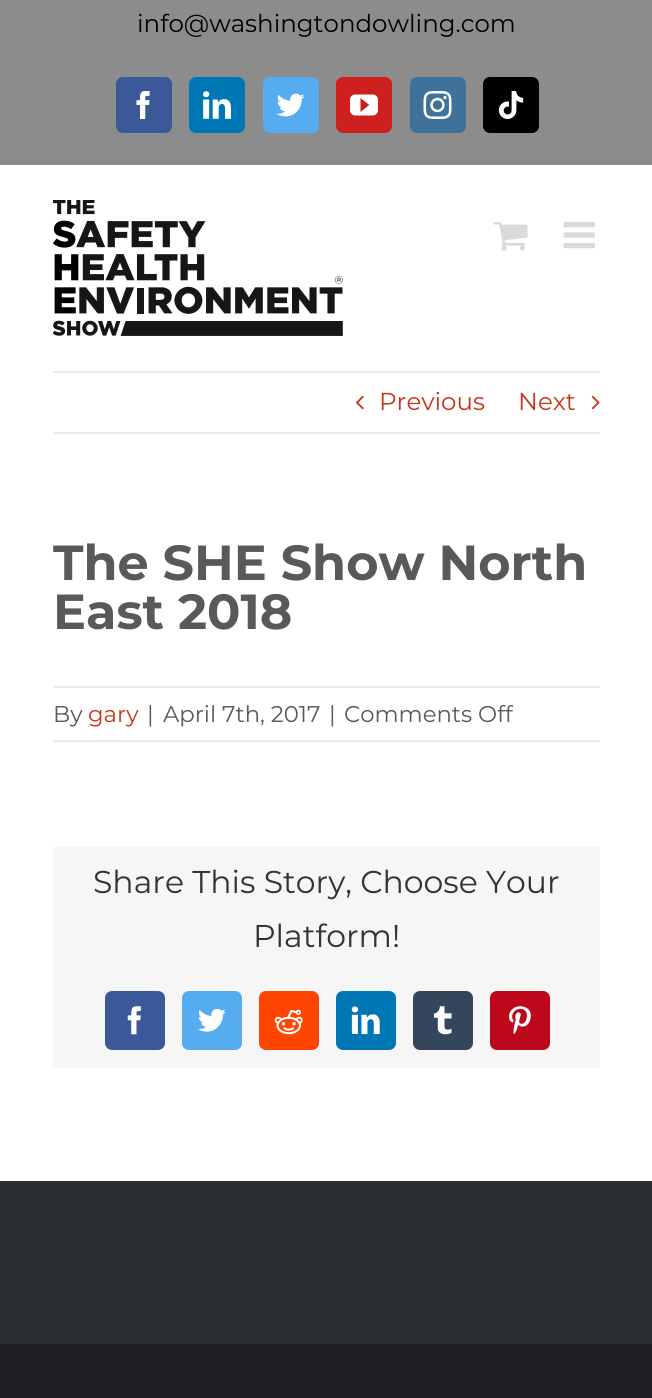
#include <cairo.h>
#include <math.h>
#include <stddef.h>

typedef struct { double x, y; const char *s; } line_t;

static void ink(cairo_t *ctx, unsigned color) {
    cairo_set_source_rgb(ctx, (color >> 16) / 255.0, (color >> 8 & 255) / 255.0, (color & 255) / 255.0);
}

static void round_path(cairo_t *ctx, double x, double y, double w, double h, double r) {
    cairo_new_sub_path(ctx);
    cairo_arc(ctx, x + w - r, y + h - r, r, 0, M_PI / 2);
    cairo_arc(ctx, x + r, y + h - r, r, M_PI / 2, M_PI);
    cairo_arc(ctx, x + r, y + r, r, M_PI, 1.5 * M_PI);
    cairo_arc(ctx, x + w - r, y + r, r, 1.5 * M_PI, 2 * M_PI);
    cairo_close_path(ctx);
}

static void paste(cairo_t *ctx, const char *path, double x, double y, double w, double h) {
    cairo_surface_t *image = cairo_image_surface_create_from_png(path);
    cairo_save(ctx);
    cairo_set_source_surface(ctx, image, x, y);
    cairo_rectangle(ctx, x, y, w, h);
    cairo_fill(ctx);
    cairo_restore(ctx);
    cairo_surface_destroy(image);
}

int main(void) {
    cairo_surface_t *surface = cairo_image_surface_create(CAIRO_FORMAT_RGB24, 652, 1398);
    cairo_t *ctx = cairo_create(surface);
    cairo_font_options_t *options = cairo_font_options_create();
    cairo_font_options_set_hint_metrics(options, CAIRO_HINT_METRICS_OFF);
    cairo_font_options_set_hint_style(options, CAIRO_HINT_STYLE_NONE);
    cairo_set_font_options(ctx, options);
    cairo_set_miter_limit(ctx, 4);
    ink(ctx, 0xFFFFFF);
    cairo_paint(ctx);
    ink(ctx, 0x8C8C8C);
    cairo_rectangle(ctx, 0, 0, 652, 165);
    cairo_fill(ctx);
    cairo_select_font_face(ctx, "Montserrat", CAIRO_FONT_SLANT_NORMAL, CAIRO_FONT_WEIGHT_NORMAL);
    cairo_set_font_size(ctx, 24.5);
    ink(ctx, 0x000000);
    cairo_move_to(ctx, 137, 32);
    cairo_show_text(ctx, "info@washingtondowling.com");
    ink(ctx, 0x3B5998);
    round_path(ctx, 117, 78, 54, 54, 6);
    cairo_fill_preserve(ctx);
    cairo_stroke(ctx);
    paste(ctx, "media/1.png", 136, 91, 14, 28);
    ink(ctx, 0x0077B5);
    round_path(ctx, 190, 78, 54, 54, 6);
    cairo_fill_preserve(ctx);
    cairo_stroke(ctx);
    paste(ctx, "media/2.png", 203, 91, 28, 28);
    ink(ctx, 0x55ACEE);
    round_path(ctx, 264, 78, 54, 54, 6);
    cairo_fill_preserve(ctx);
    cairo_stroke(ctx);
    paste(ctx, "media/3.png", 276, 93, 29, 24);
    ink(ctx, 0xCD201F);
    round_path(ctx, 337, 78, 54, 54, 6);
    cairo_fill_preserve(ctx);
    cairo_stroke(ctx);
    paste(ctx, "media/4.png", 350, 94, 28, 22);
    ink(ctx, 0x3F729B);
    round_path(ctx, 411, 78, 54, 54, 6);
    cairo_fill_preserve(ctx);
    cairo_stroke(ctx);
    paste(ctx, "media/5.png", 423, 91, 29, 28);
    ink(ctx, 0x010101);
    round_path(ctx, 484, 78, 54, 54, 6);
    cairo_fill_preserve(ctx);
    cairo_stroke(ctx);
    paste(ctx, "media/6.png", 498, 91, 26, 28);
    paste(ctx, "media/7.png", 53, 200, 290, 136);
    paste(ctx, "media/8.png", 493, 222, 35, 29);
    paste(ctx, "media/9.png", 563, 222, 32, 27);
    ink(ctx, 0xEAEAEA);
    cairo_rectangle(ctx, 53, 371, 547, 2);
    cairo_fill(ctx);
    cairo_rectangle(ctx, 53, 432, 547, 2);
    cairo_fill(ctx);
    paste(ctx, "media/10.png", 355, 395, 9, 15);
    ink(ctx, 0xC7361B);
    cairo_move_to(ctx, 379, 410);
    cairo_show_text(ctx, "Previous");
    cairo_move_to(ctx, 518, 410);
    cairo_show_text(ctx, "Next");
    paste(ctx, "media/11.png", 591, 395, 9, 15);
    cairo_select_font_face(ctx, "Montserrat", CAIRO_FONT_SLANT_NORMAL, CAIRO_FONT_WEIGHT_BOLD);
    cairo_set_font_size(ctx, 49.25);
    ink(ctx, 0x595959);
    cairo_move_to(ctx, 53, 580);
    cairo_show_text(ctx, "The SHE Show North");
    cairo_move_to(ctx, 53, 629);
    cairo_show_text(ctx, "East 2018");
    ink(ctx, 0xEAEAEA);
    cairo_rectangle(ctx, 53, 686, 547, 2);
    cairo_fill(ctx);
    cairo_rectangle(ctx, 53, 740, 547, 2);
    cairo_fill(ctx);
    cairo_select_font_face(ctx, "Montserrat", CAIRO_FONT_SLANT_NORMAL, CAIRO_FONT_WEIGHT_NORMAL);
    cairo_set_font_size(ctx, 22.75);
    ink(ctx, 0x595959);
    cairo_move_to(ctx, 53, 722);
    cairo_show_text(ctx, "By");
    ink(ctx, 0xC7361B);
    cairo_move_to(ctx, 88, 722);
    cairo_show_text(ctx, "gary");
    ink(ctx, 0x595959);
    {
        static const line_t items[] = {
            {147, 722, "|"},
            {163, 722, "April 7th, 2017"},
            {329, 722, "|"},
            {344, 722, "Comments Off"},
        };
        for (size_t i = 0; i < sizeof items / sizeof *items; i++) {
            cairo_move_to(ctx, items[i].x, items[i].y);
            cairo_show_text(ctx, items[i].s);
        }
    }
    ink(ctx, 0xF6F6F6);
    cairo_rectangle(ctx, 53, 847, 547, 221);
    cairo_fill(ctx);
    cairo_set_font_size(ctx, 31.5);
    ink(ctx, 0x333333);
    cairo_move_to(ctx, 93, 893);
    cairo_show_text(ctx, "Share This Story, Choose Your");
    cairo_move_to(ctx, 253, 947);
    cairo_show_text(ctx, "Platform!");
    ink(ctx, 0x3B5998);
    round_path(ctx, 106, 992, 58, 57, 6);
    cairo_fill_preserve(ctx);
    cairo_stroke(ctx);
    paste(ctx, "media/12.png", 127, 1006, 14, 29);
    ink(ctx, 0x55ACEE);
    round_path(ctx, 183, 992, 58, 57, 6);
    cairo_fill_preserve(ctx);
    cairo_stroke(ctx);
    paste(ctx, "media/13.png", 198, 1008, 28, 24);
    ink(ctx, 0xFF4500);
    round_path(ctx, 260, 992, 58, 57, 6);
    cairo_fill_preserve(ctx);
    cairo_stroke(ctx);
    paste(ctx, "media/14.png", 274, 1009, 29, 26);
    ink(ctx, 0x0077B5);
    round_path(ctx, 337, 992, 58, 57, 6);
    cairo_fill_preserve(ctx);
    cairo_stroke(ctx);
    paste(ctx, "media/15.png", 351, 1006, 29, 29);
    ink(ctx, 0x35465C);
    round_path(ctx, 414, 992, 58, 57, 6);
    cairo_fill_preserve(ctx);
    cairo_stroke(ctx);
    paste(ctx, "media/16.png", 434, 1006, 18, 29);
    ink(ctx, 0xBD081C);
    round_path(ctx, 491, 992, 58, 57, 6);
    cairo_fill_preserve(ctx);
    cairo_stroke(ctx);
    paste(ctx, "media/17.png", 509, 1006, 22, 29);
    ink(ctx, 0x2B2E32);
    cairo_rectangle(ctx, 0, 1181, 652, 163);
    cairo_fill(ctx);
    ink(ctx, 0x1D1F22);
    cairo_rectangle(ctx, 0, 1344, 652, 54);
    cairo_fill(ctx);
    cairo_surface_write_to_png(surface, "image.png");
    cairo_font_options_destroy(options);
    cairo_destroy(ctx);
    cairo_surface_destroy(surface);
    return 0;
}
